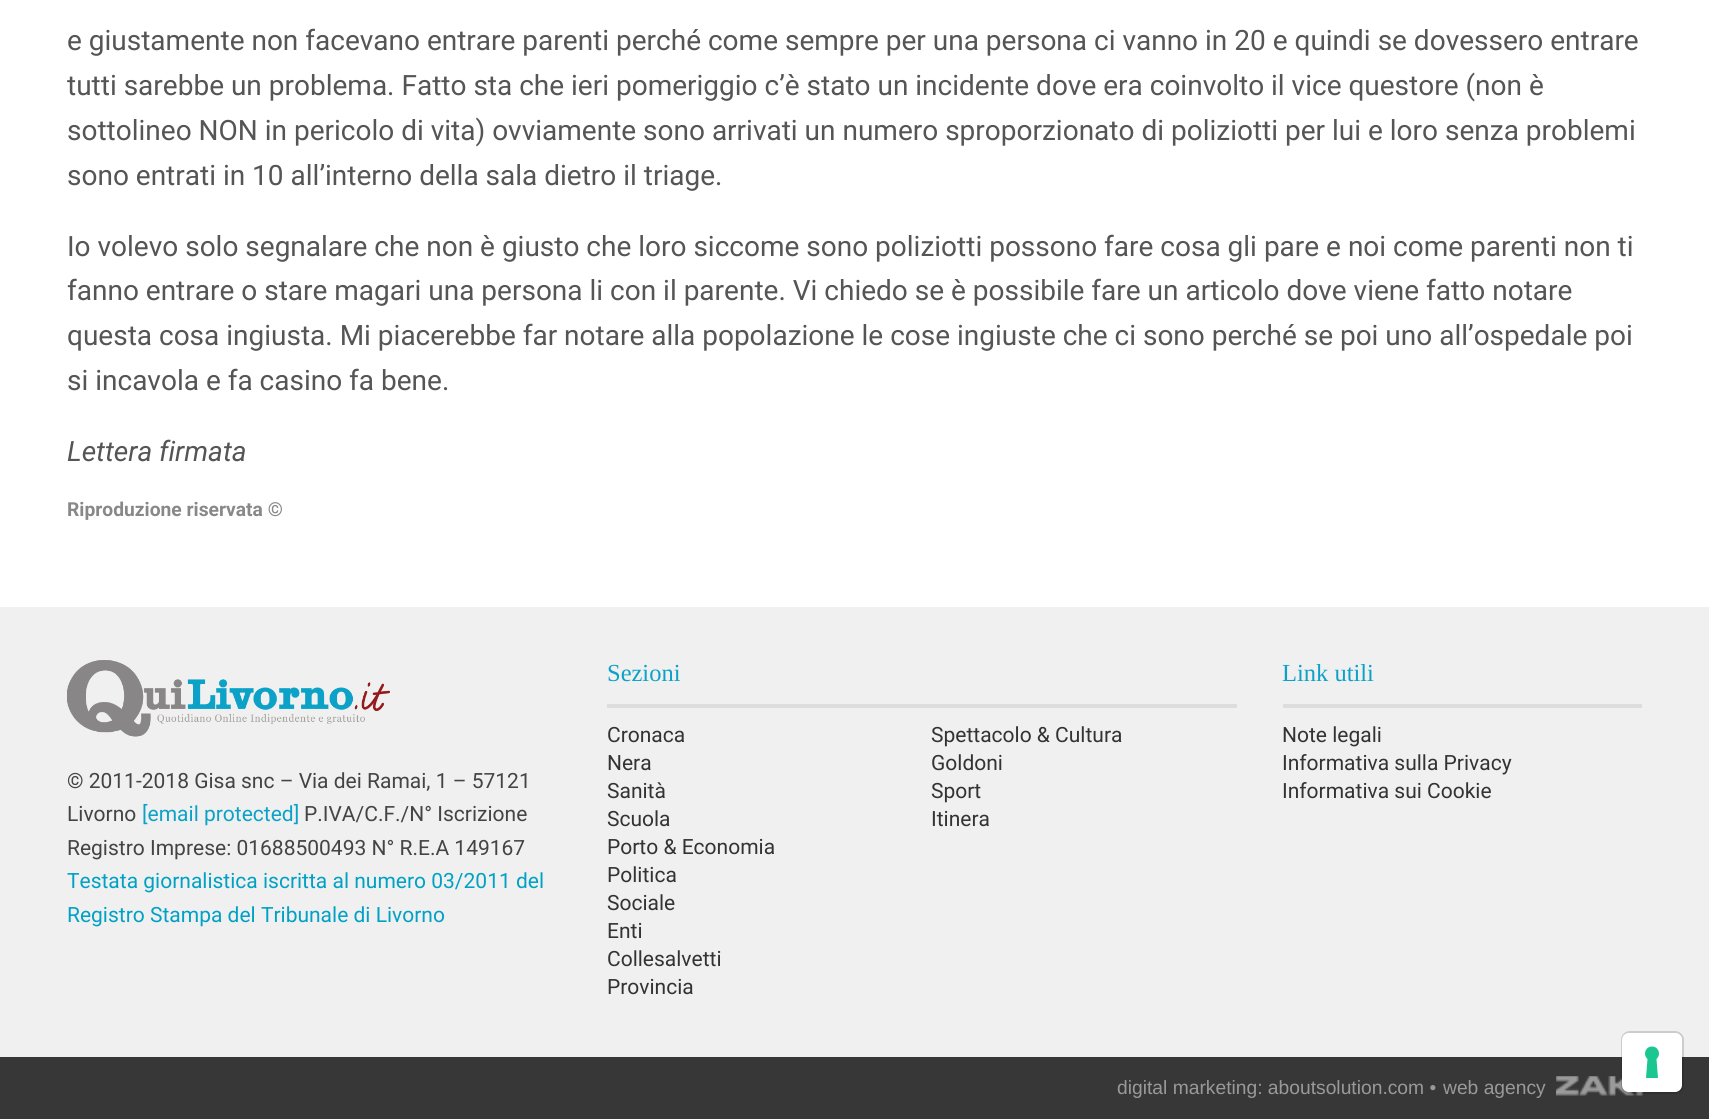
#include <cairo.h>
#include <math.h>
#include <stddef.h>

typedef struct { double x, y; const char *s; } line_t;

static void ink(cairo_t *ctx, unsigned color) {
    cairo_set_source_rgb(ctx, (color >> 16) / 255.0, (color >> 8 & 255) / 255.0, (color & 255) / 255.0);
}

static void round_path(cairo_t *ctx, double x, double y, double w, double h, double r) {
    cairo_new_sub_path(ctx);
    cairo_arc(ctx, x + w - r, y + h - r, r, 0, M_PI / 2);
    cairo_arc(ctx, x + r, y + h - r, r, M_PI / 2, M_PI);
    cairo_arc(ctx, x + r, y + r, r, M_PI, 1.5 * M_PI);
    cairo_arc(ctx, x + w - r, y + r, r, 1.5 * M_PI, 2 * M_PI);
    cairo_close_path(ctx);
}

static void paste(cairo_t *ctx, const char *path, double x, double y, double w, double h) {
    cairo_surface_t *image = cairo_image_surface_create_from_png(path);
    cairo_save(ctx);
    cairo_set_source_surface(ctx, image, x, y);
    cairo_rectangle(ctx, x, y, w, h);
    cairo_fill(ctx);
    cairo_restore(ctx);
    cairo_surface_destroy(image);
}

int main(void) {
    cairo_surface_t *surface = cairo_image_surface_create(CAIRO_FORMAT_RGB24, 1709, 1119);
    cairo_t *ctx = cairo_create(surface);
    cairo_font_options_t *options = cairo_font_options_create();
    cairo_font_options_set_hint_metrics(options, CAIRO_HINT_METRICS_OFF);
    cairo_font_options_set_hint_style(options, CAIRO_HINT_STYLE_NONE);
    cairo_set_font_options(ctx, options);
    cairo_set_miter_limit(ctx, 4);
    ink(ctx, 0xFFFFFF);
    cairo_paint(ctx);
    cairo_select_font_face(ctx, "Roboto", CAIRO_FONT_SLANT_NORMAL, CAIRO_FONT_WEIGHT_NORMAL);
    cairo_set_font_size(ctx, 28);
    ink(ctx, 0x555555);
    {
        static const line_t items[] = {
            {67, 50, "e giustamente non facevano entrare parenti perché come sempre per una persona ci vanno in 20 e quindi se dovessero entrare"},
            {67, 95, "tutti sarebbe un problema. Fatto sta che ieri pomeriggio c’è stato un incidente dove era coinvolto il vice questore (non è"},
            {67, 140, "sottolineo NON in pericolo di vita) ovviamente sono arrivati un numero sproporzionato di poliziotti per lui e loro senza problemi"},
            {67, 185, "sono entrati in 10 all’interno della sala dietro il triage."},
            {67, 256, "Io volevo solo segnalare che non è giusto che loro siccome sono poliziotti possono fare cosa gli pare e noi come parenti non ti"},
            {67, 300, "fanno entrare o stare magari una persona li con il parente. Vi chiedo se è possibile fare un articolo dove viene fatto notare"},
            {67, 345, "questa cosa ingiusta. Mi piacerebbe far notare alla popolazione le cose ingiuste che ci sono perché se poi uno all’ospedale poi"},
            {67, 390, "si incavola e fa casino fa bene."},
        };
        for (size_t i = 0; i < sizeof items / sizeof *items; i++) {
            cairo_move_to(ctx, items[i].x, items[i].y);
            cairo_show_text(ctx, items[i].s);
        }
    }
    cairo_select_font_face(ctx, "Roboto", CAIRO_FONT_SLANT_ITALIC, CAIRO_FONT_WEIGHT_NORMAL);
    cairo_move_to(ctx, 67, 461);
    cairo_show_text(ctx, "Lettera firmata");
    cairo_select_font_face(ctx, "Roboto", CAIRO_FONT_SLANT_NORMAL, CAIRO_FONT_WEIGHT_BOLD);
    cairo_set_font_size(ctx, 19.25);
    ink(ctx, 0x888888);
    cairo_move_to(ctx, 67, 516);
    cairo_show_text(ctx, "Riproduzione riservata ©");
    ink(ctx, 0xF0F0F0);
    cairo_rectangle(ctx, 0, 607, 1709, 450);
    cairo_fill(ctx);
    ink(ctx, 0xDDDDDD);
    cairo_rectangle(ctx, 607, 704, 630, 4);
    cairo_fill(ctx);
    cairo_select_font_face(ctx, "Liberation Serif", CAIRO_FONT_SLANT_NORMAL, CAIRO_FONT_WEIGHT_NORMAL);
    cairo_set_font_size(ctx, 24.5);
    ink(ctx, 0x0CA2C8);
    cairo_move_to(ctx, 607, 681);
    cairo_show_text(ctx, "Sezioni");
    cairo_select_font_face(ctx, "Roboto", CAIRO_FONT_SLANT_NORMAL, CAIRO_FONT_WEIGHT_NORMAL);
    cairo_set_font_size(ctx, 21);
    ink(ctx, 0x333333);
    {
        static const line_t items[] = {
            {607, 742, "Cronaca"},
            {607, 770, "Nera"},
            {607, 798, "Sanità"},
            {607, 826, "Scuola"},
            {607, 854, "Porto & Economia"},
            {607, 882, "Politica"},
            {607, 910, "Sociale"},
            {607, 938, "Enti"},
            {607, 966, "Collesalvetti"},
            {607, 994, "Provincia"},
            {931, 742, "Spettacolo & Cultura"},
            {931, 770, "Goldoni"},
            {931, 798, "Sport"},
            {931, 826, "Itinera"},
        };
        for (size_t i = 0; i < sizeof items / sizeof *items; i++) {
            cairo_move_to(ctx, items[i].x, items[i].y);
            cairo_show_text(ctx, items[i].s);
        }
    }
    ink(ctx, 0xDDDDDD);
    cairo_rectangle(ctx, 1283, 704, 359, 4);
    cairo_fill(ctx);
    cairo_select_font_face(ctx, "Liberation Serif", CAIRO_FONT_SLANT_NORMAL, CAIRO_FONT_WEIGHT_NORMAL);
    cairo_set_font_size(ctx, 24.5);
    ink(ctx, 0x0CA2C8);
    cairo_move_to(ctx, 1282, 681);
    cairo_show_text(ctx, "Link utili");
    cairo_select_font_face(ctx, "Roboto", CAIRO_FONT_SLANT_NORMAL, CAIRO_FONT_WEIGHT_NORMAL);
    cairo_set_font_size(ctx, 21);
    ink(ctx, 0x333333);
    {
        static const line_t items[] = {
            {1282, 742, "Note legali"},
            {1282, 770, "Informativa sulla Privacy"},
            {1282, 798, "Informativa sui Cookie"},
        };
        for (size_t i = 0; i < sizeof items / sizeof *items; i++) {
            cairo_move_to(ctx, items[i].x, items[i].y);
            cairo_show_text(ctx, items[i].s);
        }
    }
    paste(ctx, "media/1.png", 67, 660, 323, 77);
    ink(ctx, 0x444444);
    cairo_move_to(ctx, 67, 788);
    cairo_show_text(ctx, "© 2011-2018 Gisa snc – Via dei Ramai, 1 – 57121");
    cairo_move_to(ctx, 67, 821);
    cairo_show_text(ctx, "Livorno");
    ink(ctx, 0x0CA2C8);
    cairo_move_to(ctx, 142, 821);
    cairo_show_text(ctx, "[email protected]");
    ink(ctx, 0x444444);
    cairo_move_to(ctx, 304, 821);
    cairo_show_text(ctx, "P.IVA/C.F./N° Iscrizione");
    cairo_move_to(ctx, 67, 855);
    cairo_show_text(ctx, "Registro Imprese: 01688500493 N° R.E.A 149167");
    ink(ctx, 0x00A1C5);
    cairo_move_to(ctx, 67, 888);
    cairo_show_text(ctx, "Testata giornalistica iscritta al numero 03/2011 del");
    cairo_move_to(ctx, 67, 922);
    cairo_show_text(ctx, "Registro Stampa del Tribunale di Livorno");
    ink(ctx, 0x373737);
    cairo_rectangle(ctx, 0, 1057, 1709, 62);
    cairo_fill(ctx);
    cairo_select_font_face(ctx, "Liberation Sans", CAIRO_FONT_SLANT_NORMAL, CAIRO_FONT_WEIGHT_NORMAL);
    cairo_set_font_size(ctx, 19.25);
    ink(ctx, 0x999999);
    cairo_move_to(ctx, 1117, 1094);
    cairo_show_text(ctx, "digital marketing: aboutsolution.com •");
    cairo_move_to(ctx, 1443, 1094);
    cairo_show_text(ctx, "web agency");
    paste(ctx, "media/2.png", 1556, 1076, 87, 20);
    round_path(ctx, 1622, 1032, 61, 61, 8);
    cairo_set_source_rgba(ctx, 0, 0, 0, 0.15);
    cairo_stroke(ctx);
    ink(ctx, 0xFFFFFF);
    round_path(ctx, 1622, 1033, 60, 59, 7);
    cairo_fill(ctx);
    ink(ctx, 0x1CC691);
    cairo_set_fill_rule(ctx, CAIRO_FILL_RULE_EVEN_ODD);
    cairo_new_path(ctx);
    cairo_move_to(ctx, 1652, 1046.5);
    cairo_curve_to(ctx, 1658.5, 1046.5, 1661.5, 1054.5, 1656.5, 1059);
    cairo_line_to(ctx, 1658, 1078);
    cairo_line_to(ctx, 1646, 1078);
    cairo_line_to(ctx, 1647.5, 1059);
    cairo_curve_to(ctx, 1642.5, 1054.5, 1645.5, 1046.5, 1652, 1046.5);
    cairo_close_path(ctx);
    cairo_fill(ctx);
    cairo_surface_write_to_png(surface, "image.png");
    cairo_font_options_destroy(options);
    cairo_destroy(ctx);
    cairo_surface_destroy(surface);
    return 0;
}
